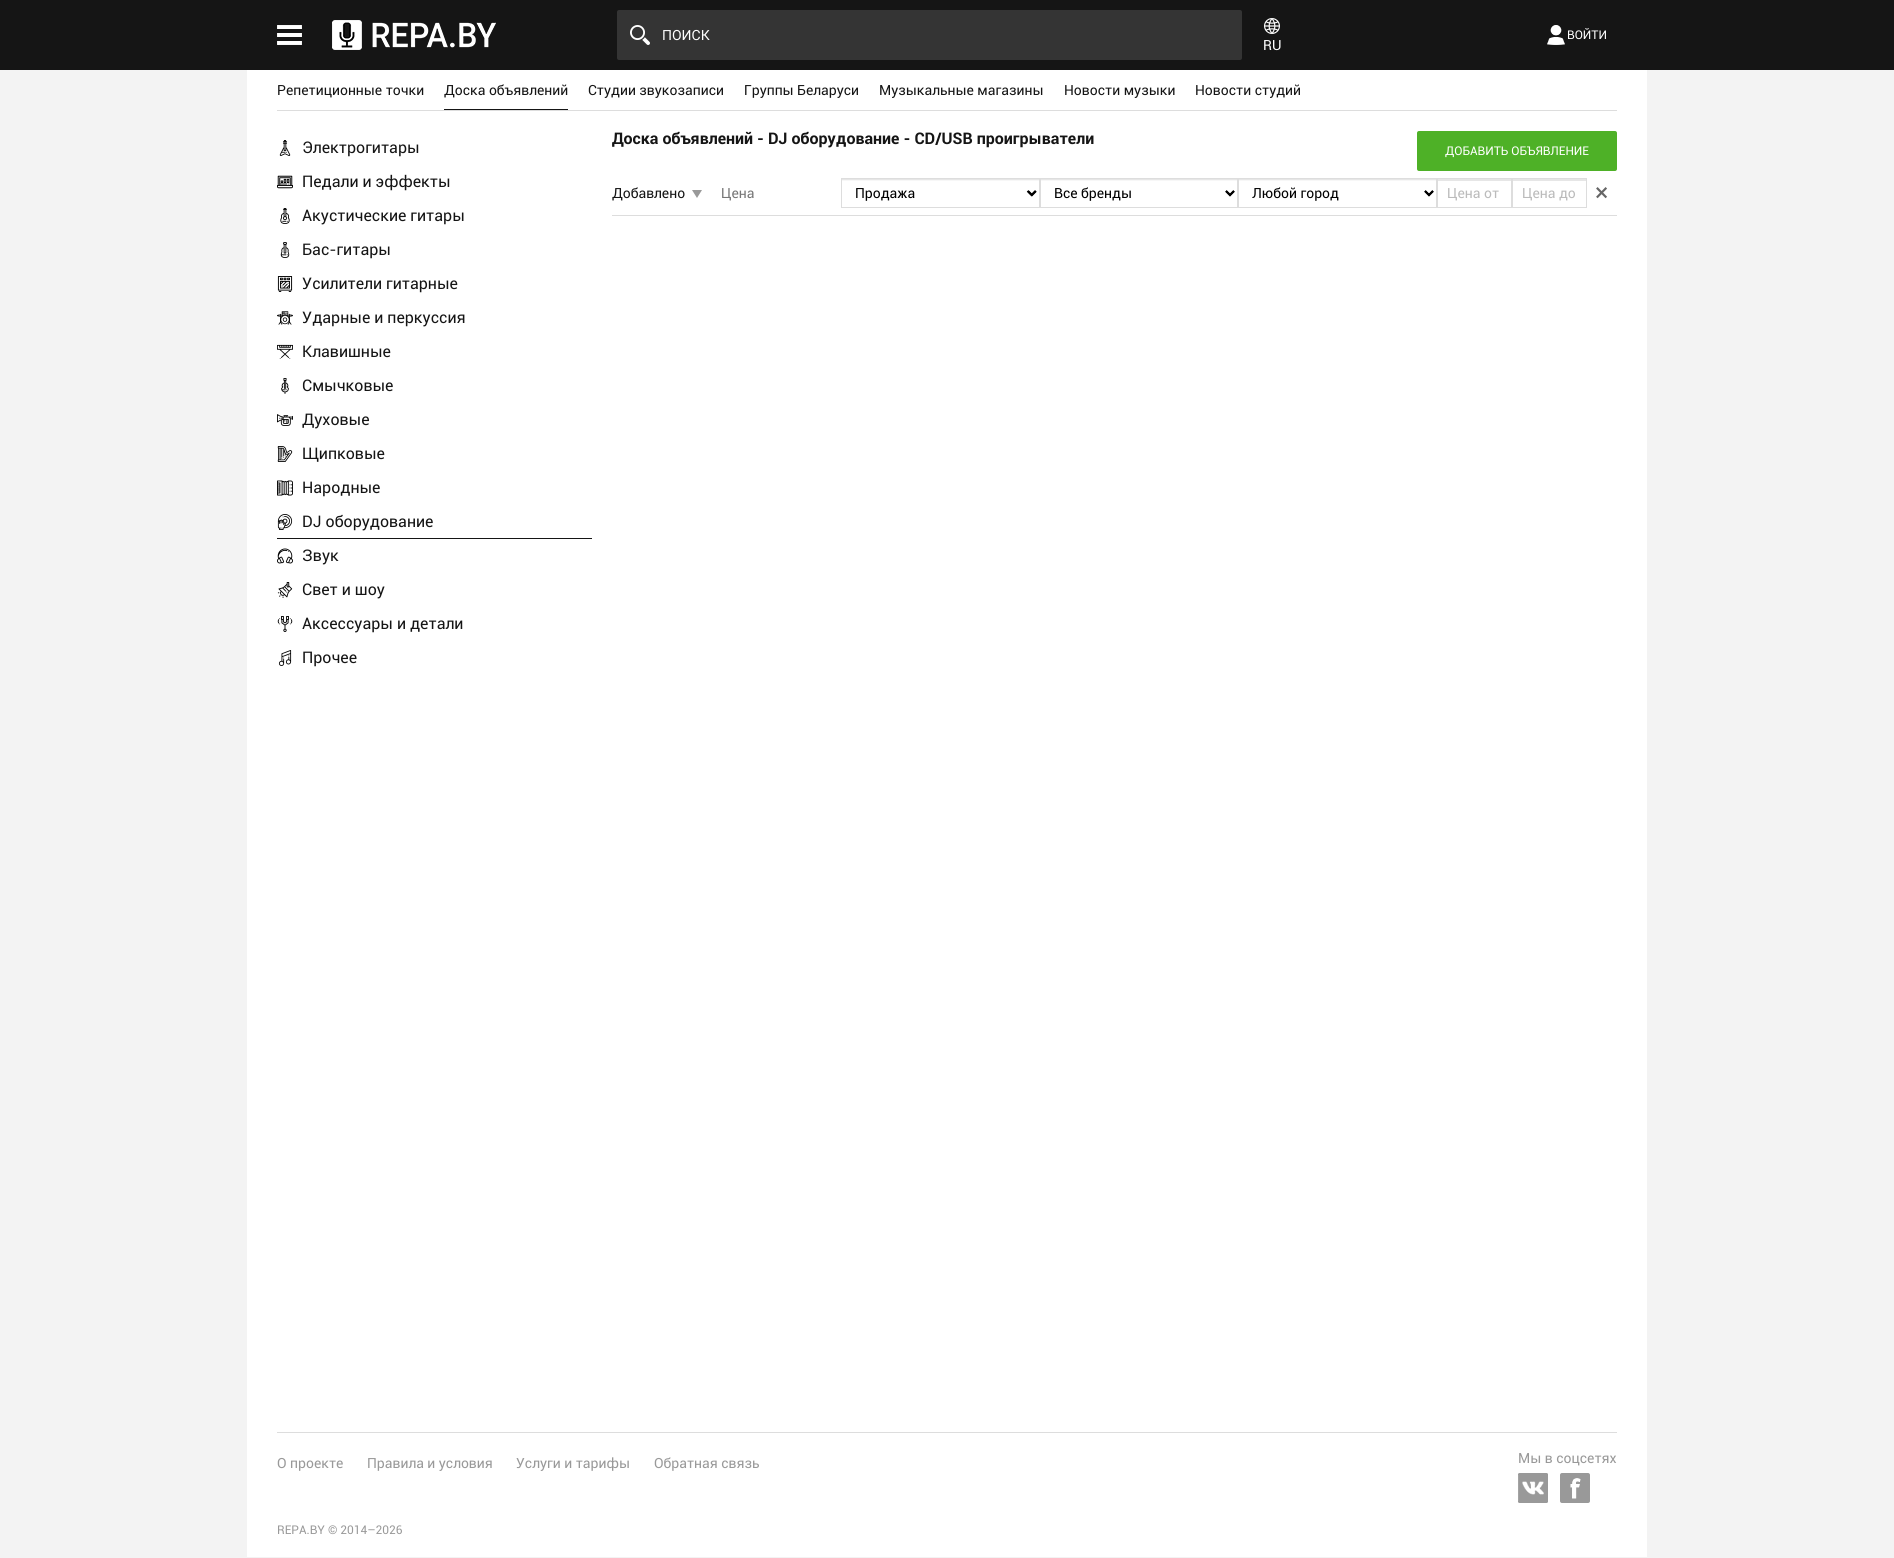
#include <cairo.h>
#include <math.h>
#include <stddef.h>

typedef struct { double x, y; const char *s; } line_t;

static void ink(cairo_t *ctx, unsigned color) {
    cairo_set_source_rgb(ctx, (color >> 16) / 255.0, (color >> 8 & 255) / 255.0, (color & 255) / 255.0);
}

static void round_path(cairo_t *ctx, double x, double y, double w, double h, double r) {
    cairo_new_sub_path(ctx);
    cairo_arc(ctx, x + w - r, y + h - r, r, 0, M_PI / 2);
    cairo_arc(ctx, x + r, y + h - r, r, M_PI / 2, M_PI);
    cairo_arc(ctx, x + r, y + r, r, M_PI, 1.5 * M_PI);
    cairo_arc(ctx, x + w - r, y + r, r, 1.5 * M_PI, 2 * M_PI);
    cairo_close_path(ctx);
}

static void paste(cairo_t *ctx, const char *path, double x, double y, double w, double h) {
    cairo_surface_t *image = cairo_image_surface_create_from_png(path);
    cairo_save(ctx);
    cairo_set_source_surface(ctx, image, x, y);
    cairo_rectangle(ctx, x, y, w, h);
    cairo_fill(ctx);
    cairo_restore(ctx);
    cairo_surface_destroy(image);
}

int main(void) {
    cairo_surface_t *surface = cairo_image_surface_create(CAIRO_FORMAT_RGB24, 1894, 1558);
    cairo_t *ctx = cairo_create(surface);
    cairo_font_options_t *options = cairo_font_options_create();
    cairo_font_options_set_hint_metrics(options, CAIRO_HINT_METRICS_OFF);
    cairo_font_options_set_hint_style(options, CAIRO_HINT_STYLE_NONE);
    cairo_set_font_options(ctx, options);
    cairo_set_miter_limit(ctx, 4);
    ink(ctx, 0xF3F3F3);
    cairo_paint(ctx);
    ink(ctx, 0x151515);
    cairo_rectangle(ctx, 0, 0, 1894, 70);
    cairo_fill(ctx);
    paste(ctx, "media/1.png", 277, 25, 25, 20);
    paste(ctx, "media/2.png", 332, 20, 164, 30);
    ink(ctx, 0x343434);
    round_path(ctx, 617, 10, 625, 50, 2);
    cairo_fill(ctx);
    paste(ctx, "media/3.png", 630, 25, 20, 20);
    cairo_select_font_face(ctx, "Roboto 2", CAIRO_FONT_SLANT_NORMAL, CAIRO_FONT_WEIGHT_NORMAL);
    cairo_set_font_size(ctx, 14);
    ink(ctx, 0xFFFFFF);
    cairo_move_to(ctx, 662, 40);
    cairo_show_text(ctx, "ПОИСК");
    paste(ctx, "media/4.png", 1547, 25, 18, 20);
    cairo_select_font_face(ctx, "Roboto", CAIRO_FONT_SLANT_NORMAL, CAIRO_FONT_WEIGHT_NORMAL);
    cairo_set_font_size(ctx, 12);
    cairo_move_to(ctx, 1567, 39);
    cairo_show_text(ctx, "ВОЙТИ");
    paste(ctx, "media/5.png", 1264, 18, 16, 16);
    cairo_set_font_size(ctx, 14);
    cairo_move_to(ctx, 1263, 50);
    cairo_show_text(ctx, "RU");
    cairo_rectangle(ctx, 247, 70, 1400, 1487);
    cairo_fill(ctx);
    ink(ctx, 0xDDDDDD);
    cairo_rectangle(ctx, 277, 110, 1340, 1);
    cairo_fill(ctx);
    ink(ctx, 0x151515);
    cairo_move_to(ctx, 277, 95);
    cairo_show_text(ctx, "Репетиционные точки");
    cairo_rectangle(ctx, 444, 109, 124, 1);
    cairo_fill(ctx);
    {
        static const line_t items[] = {
            {444, 95, "Доска объявлений"},
            {588, 95, "Студии звукозаписи"},
            {744, 95, "Группы Беларуси"},
            {879, 95, "Музыкальные магазины"},
            {1064, 95, "Новости музыки"},
            {1195, 95, "Новости студий"},
        };
        for (size_t i = 0; i < sizeof items / sizeof *items; i++) {
            cairo_move_to(ctx, items[i].x, items[i].y);
            cairo_show_text(ctx, items[i].s);
        }
    }
    paste(ctx, "media/6.png", 279, 140, 12, 16);
    cairo_set_font_size(ctx, 16);
    cairo_move_to(ctx, 302, 153);
    cairo_show_text(ctx, "Электрогитары");
    paste(ctx, "media/7.png", 277, 175, 16, 14);
    cairo_move_to(ctx, 302, 187);
    cairo_show_text(ctx, "Педали и эффекты");
    paste(ctx, "media/8.png", 280, 208, 10, 16);
    cairo_move_to(ctx, 302, 221);
    cairo_show_text(ctx, "Акустические гитары");
    paste(ctx, "media/9.png", 280, 242, 10, 16);
    cairo_move_to(ctx, 302, 255);
    cairo_show_text(ctx, "Бас-гитары");
    paste(ctx, "media/10.png", 277, 276, 16, 16);
    cairo_move_to(ctx, 302, 289);
    cairo_show_text(ctx, "Усилители гитарные");
    paste(ctx, "media/11.png", 277, 311, 16, 14);
    cairo_move_to(ctx, 302, 323);
    cairo_show_text(ctx, "Ударные и перкуссия");
    paste(ctx, "media/12.png", 277, 344, 16, 15);
    cairo_move_to(ctx, 302, 357);
    cairo_show_text(ctx, "Клавишные");
    paste(ctx, "media/13.png", 281, 378, 8, 16);
    cairo_move_to(ctx, 302, 391);
    cairo_show_text(ctx, "Смычковые");
    paste(ctx, "media/14.png", 277, 414, 16, 12);
    cairo_move_to(ctx, 302, 425);
    cairo_show_text(ctx, "Духовые");
    paste(ctx, "media/15.png", 277, 446, 16, 16);
    cairo_move_to(ctx, 302, 459);
    cairo_show_text(ctx, "Щипковые");
    paste(ctx, "media/16.png", 277, 480, 16, 16);
    cairo_move_to(ctx, 302, 493);
    cairo_show_text(ctx, "Народные");
    cairo_rectangle(ctx, 277, 538, 315, 1);
    cairo_fill(ctx);
    paste(ctx, "media/17.png", 277, 514, 16, 16);
    cairo_move_to(ctx, 302, 527);
    cairo_show_text(ctx, "DJ оборудование");
    paste(ctx, "media/18.png", 277, 548, 16, 16);
    cairo_move_to(ctx, 302, 561);
    cairo_show_text(ctx, "Звук");
    paste(ctx, "media/19.png", 277, 582, 16, 16);
    cairo_move_to(ctx, 302, 595);
    cairo_show_text(ctx, "Свет и шоу");
    paste(ctx, "media/20.png", 277, 616, 16, 16);
    cairo_move_to(ctx, 302, 629);
    cairo_show_text(ctx, "Аксессуары и детали");
    paste(ctx, "media/21.png", 278, 650, 14, 16);
    cairo_move_to(ctx, 302, 663);
    cairo_show_text(ctx, "Прочее");
    cairo_select_font_face(ctx, "Roboto", CAIRO_FONT_SLANT_NORMAL, CAIRO_FONT_WEIGHT_BOLD);
    cairo_move_to(ctx, 612, 144);
    cairo_show_text(ctx, "Доска объявлений - DJ оборудование - CD/USB проигрыватели");
    ink(ctx, 0x4EB127);
    round_path(ctx, 1417, 131, 200, 40, 2);
    cairo_fill(ctx);
    cairo_select_font_face(ctx, "Roboto", CAIRO_FONT_SLANT_NORMAL, CAIRO_FONT_WEIGHT_NORMAL);
    cairo_set_font_size(ctx, 12);
    ink(ctx, 0xFFFFFF);
    cairo_move_to(ctx, 1445, 155);
    cairo_show_text(ctx, "ДОБАВИТЬ ОБЪЯВЛЕНИЕ");
    ink(ctx, 0xDDDDDD);
    cairo_rectangle(ctx, 612, 215, 1005, 1);
    cairo_fill(ctx);
    cairo_set_font_size(ctx, 14);
    ink(ctx, 0x151515);
    cairo_move_to(ctx, 612, 198);
    cairo_show_text(ctx, "Добавлено");
    ink(ctx, 0x999999);
    cairo_new_path(ctx);
    cairo_move_to(ctx, 692, 190);
    cairo_line_to(ctx, 702, 190);
    cairo_line_to(ctx, 697, 198);
    cairo_close_path(ctx);
    cairo_fill(ctx);
    ink(ctx, 0x777777);
    cairo_move_to(ctx, 721, 198);
    cairo_show_text(ctx, "Цена");
    paste(ctx, "media/22.png", 842, 179, 197, 18);
    cairo_new_path(ctx);
    cairo_move_to(ctx, 1027.5, 191);
    cairo_line_to(ctx, 1031.5, 195);
    cairo_line_to(ctx, 1035.5, 191);
    ink(ctx, 0x000000);
    cairo_stroke(ctx);
    cairo_rectangle(ctx, 841.5, 178.5, 198, 29);
    ink(ctx, 0xDDDDDD);
    cairo_set_line_width(ctx, 1);
    cairo_stroke(ctx);
    ink(ctx, 0x000000);
    cairo_move_to(ctx, 855, 198);
    cairo_show_text(ctx, "Продажа");
    paste(ctx, "media/23.png", 1041, 179, 196, 18);
    cairo_new_path(ctx);
    cairo_move_to(ctx, 1226, 191);
    cairo_line_to(ctx, 1230, 195);
    cairo_line_to(ctx, 1234, 191);
    cairo_set_line_width(ctx, 2);
    cairo_stroke(ctx);
    cairo_rectangle(ctx, 1040.5, 178.5, 197, 29);
    ink(ctx, 0xDDDDDD);
    cairo_set_line_width(ctx, 1);
    cairo_stroke(ctx);
    ink(ctx, 0x000000);
    cairo_move_to(ctx, 1054, 198);
    cairo_show_text(ctx, "Все бренды");
    paste(ctx, "media/22.png", 1239, 179, 197, 18);
    cairo_new_path(ctx);
    cairo_move_to(ctx, 1425, 191);
    cairo_line_to(ctx, 1429, 195);
    cairo_line_to(ctx, 1433, 191);
    cairo_set_line_width(ctx, 2);
    cairo_stroke(ctx);
    cairo_rectangle(ctx, 1238.5, 178.5, 198, 29);
    ink(ctx, 0xDDDDDD);
    cairo_set_line_width(ctx, 1);
    cairo_stroke(ctx);
    ink(ctx, 0x000000);
    cairo_move_to(ctx, 1252, 198);
    cairo_show_text(ctx, "Любой город");
    ink(ctx, 0xE6E6E6);
    cairo_rectangle(ctx, 1437, 179, 150, 2);
    cairo_fill(ctx);
    cairo_rectangle(ctx, 1437.5, 178.5, 74, 29);
    ink(ctx, 0xDDDDDD);
    cairo_stroke(ctx);
    ink(ctx, 0xBBBBBB);
    cairo_move_to(ctx, 1447, 198);
    cairo_show_text(ctx, "Цена от");
    cairo_rectangle(ctx, 1512.5, 178.5, 74, 29);
    ink(ctx, 0xDDDDDD);
    cairo_stroke(ctx);
    ink(ctx, 0xBBBBBB);
    cairo_move_to(ctx, 1522, 198);
    cairo_show_text(ctx, "Цена до");
    cairo_set_font_size(ctx, 25);
    ink(ctx, 0x666666);
    cairo_move_to(ctx, 1595, 201);
    cairo_show_text(ctx, "×");
    ink(ctx, 0xDDDDDD);
    cairo_rectangle(ctx, 277, 1432, 1340, 1);
    cairo_fill(ctx);
    cairo_set_font_size(ctx, 14);
    ink(ctx, 0x999999);
    {
        static const line_t items[] = {
            {277, 1468, "О проекте"},
            {367, 1468, "Правила и условия"},
            {516, 1468, "Услуги и тарифы"},
            {654, 1468, "Обратная связь"},
            {1518, 1463, "Мы в соцсетях"},
        };
        for (size_t i = 0; i < sizeof items / sizeof *items; i++) {
            cairo_move_to(ctx, items[i].x, items[i].y);
            cairo_show_text(ctx, items[i].s);
        }
    }
    paste(ctx, "media/24.png", 1518, 1473, 30, 30);
    paste(ctx, "media/25.png", 1560, 1473, 30, 30);
    cairo_set_font_size(ctx, 12);
    cairo_move_to(ctx, 277, 1534);
    cairo_show_text(ctx, "REPA.BY © 2014–2026");
    cairo_surface_write_to_png(surface, "image.png");
    cairo_font_options_destroy(options);
    cairo_destroy(ctx);
    cairo_surface_destroy(surface);
    return 0;
}
